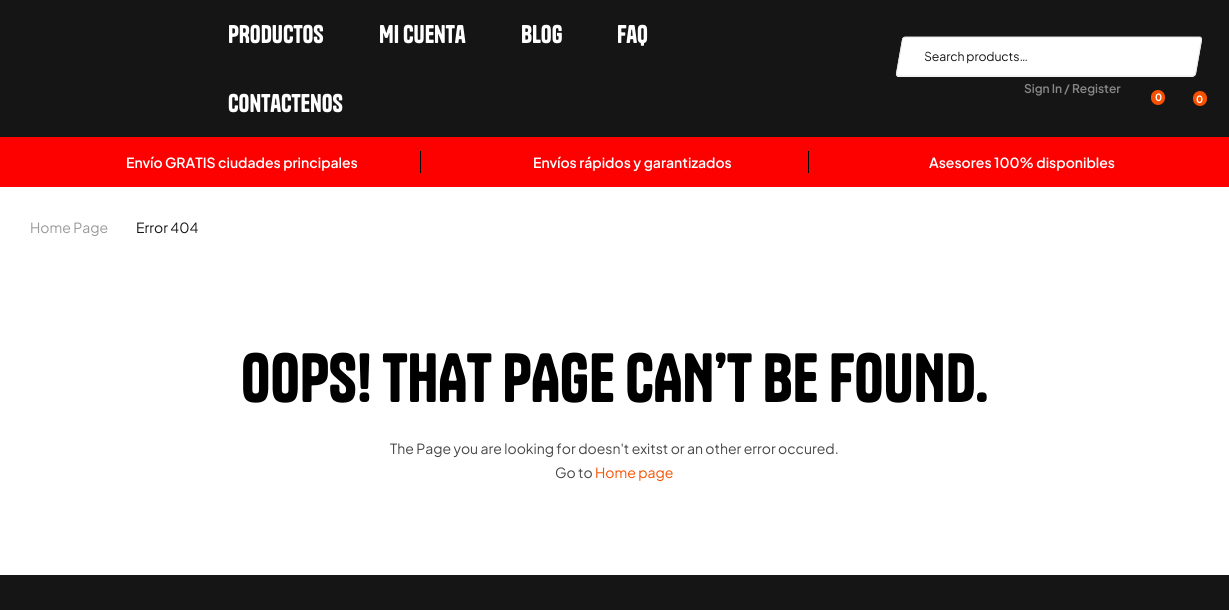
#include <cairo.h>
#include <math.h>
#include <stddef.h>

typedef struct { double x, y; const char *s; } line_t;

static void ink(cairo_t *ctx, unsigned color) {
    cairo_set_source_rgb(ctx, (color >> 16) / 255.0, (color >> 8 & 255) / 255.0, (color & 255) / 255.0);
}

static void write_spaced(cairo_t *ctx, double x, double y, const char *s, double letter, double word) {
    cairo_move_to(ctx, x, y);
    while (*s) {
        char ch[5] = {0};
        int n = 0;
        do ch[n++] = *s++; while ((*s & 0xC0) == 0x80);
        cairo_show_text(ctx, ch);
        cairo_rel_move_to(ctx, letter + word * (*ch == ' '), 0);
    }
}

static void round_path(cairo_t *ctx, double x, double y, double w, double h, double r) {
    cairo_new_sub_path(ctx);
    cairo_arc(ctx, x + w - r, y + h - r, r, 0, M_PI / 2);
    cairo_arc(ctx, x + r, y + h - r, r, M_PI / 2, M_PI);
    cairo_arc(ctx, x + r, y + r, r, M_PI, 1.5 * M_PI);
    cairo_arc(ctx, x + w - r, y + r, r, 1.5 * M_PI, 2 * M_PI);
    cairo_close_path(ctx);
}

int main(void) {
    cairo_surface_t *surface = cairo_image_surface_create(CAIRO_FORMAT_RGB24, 1229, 610);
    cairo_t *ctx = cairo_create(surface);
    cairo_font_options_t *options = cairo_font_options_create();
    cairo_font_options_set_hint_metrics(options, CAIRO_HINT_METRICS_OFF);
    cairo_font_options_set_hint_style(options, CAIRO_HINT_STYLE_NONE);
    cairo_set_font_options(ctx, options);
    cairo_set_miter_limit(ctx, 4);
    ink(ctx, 0xFFFFFF);
    cairo_paint(ctx);
    ink(ctx, 0x151515);
    cairo_rectangle(ctx, 0, 0, 1229, 137);
    cairo_fill(ctx);
    cairo_select_font_face(ctx, "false", CAIRO_FONT_SLANT_NORMAL, CAIRO_FONT_WEIGHT_NORMAL);
    cairo_set_font_size(ctx, 24);
    ink(ctx, 0xFFFFFF);
    {
        static const line_t items[] = {
            {228, 43, "PRODUCTOS"},
            {379, 43, "Mi cuenta"},
            {521, 43, "Blog"},
            {617, 43, "Faq"},
            {228, 112, "Contactenos"},
        };
        for (size_t i = 0; i < sizeof items / sizeof *items; i++) {
            cairo_move_to(ctx, items[i].x, items[i].y);
            cairo_show_text(ctx, items[i].s);
        }
    }
    cairo_new_path(ctx);
    cairo_move_to(ctx, 905, 37);
    cairo_line_to(ctx, 1199, 37);
    cairo_curve_to(ctx, 1201, 37, 1202, 38, 1202, 40);
    cairo_line_to(ctx, 1196, 74);
    cairo_curve_to(ctx, 1196, 75, 1194, 77, 1192, 77);
    cairo_line_to(ctx, 898, 77);
    cairo_curve_to(ctx, 897, 77, 896, 75, 896, 74);
    cairo_line_to(ctx, 902, 40);
    cairo_curve_to(ctx, 902, 38, 904, 37, 905, 37);
    cairo_close_path(ctx);
    cairo_fill(ctx);
    cairo_new_path(ctx);
    cairo_move_to(ctx, 905.5, 37);
    cairo_line_to(ctx, 1199.5, 37);
    cairo_curve_to(ctx, 1201, 37, 1201.5, 38, 1201.5, 39.5);
    cairo_line_to(ctx, 1195.5, 73.5);
    cairo_curve_to(ctx, 1195, 75, 1194, 76, 1192.5, 76);
    cairo_line_to(ctx, 898.5, 76);
    cairo_curve_to(ctx, 897, 76, 896, 75, 896.5, 73.5);
    cairo_line_to(ctx, 902.5, 39.5);
    cairo_curve_to(ctx, 902.5, 38, 904, 37, 905.5, 37);
    cairo_close_path(ctx);
    ink(ctx, 0xE8E8E8);
    cairo_set_line_width(ctx, 1);
    cairo_stroke(ctx);
    cairo_save(ctx);
    cairo_new_path(ctx);
    cairo_move_to(ctx, 926.5, 48.5);
    cairo_line_to(ctx, 1140.5, 48.5);
    cairo_line_to(ctx, 1137.5, 63.5);
    cairo_line_to(ctx, 923.5, 63.5);
    cairo_close_path(ctx);
    cairo_clip(ctx);
    cairo_select_font_face(ctx, "Plus Jakarta Sans", CAIRO_FONT_SLANT_NORMAL, CAIRO_FONT_WEIGHT_NORMAL);
    cairo_set_font_size(ctx, 12.25);
    ink(ctx, 0x151515);
    write_spaced(ctx, 924, 61, "Search products…", -0.1, 0);
    cairo_restore(ctx);
    cairo_select_font_face(ctx, "Plus Jakarta Sans SemiBold", CAIRO_FONT_SLANT_NORMAL, CAIRO_FONT_WEIGHT_NORMAL);
    cairo_set_font_size(ctx, 12);
    ink(ctx, 0x888888);
    cairo_move_to(ctx, 1024, 93);
    cairo_show_text(ctx, "Sign In / Register");
    ink(ctx, 0xF65000);
    round_path(ctx, 1151, 90, 14, 15, 7);
    cairo_fill(ctx);
    cairo_select_font_face(ctx, "Plus Jakarta Sans", CAIRO_FONT_SLANT_NORMAL, CAIRO_FONT_WEIGHT_BOLD);
    cairo_set_font_size(ctx, 10);
    ink(ctx, 0xFFFFFF);
    cairo_move_to(ctx, 1155, 101);
    cairo_show_text(ctx, "0");
    ink(ctx, 0xF65000);
    round_path(ctx, 1193, 91, 14, 15, 7);
    cairo_fill(ctx);
    ink(ctx, 0xFFFFFF);
    cairo_move_to(ctx, 1196, 103);
    cairo_show_text(ctx, "0");
    ink(ctx, 0xFD0000);
    cairo_rectangle(ctx, 0, 137, 1229, 50);
    cairo_fill(ctx);
    cairo_select_font_face(ctx, "Plus Jakarta Sans SemiBold", CAIRO_FONT_SLANT_NORMAL, CAIRO_FONT_WEIGHT_NORMAL);
    cairo_set_font_size(ctx, 14);
    ink(ctx, 0xFFFFFF);
    cairo_move_to(ctx, 126, 168);
    cairo_show_text(ctx, "Envío GRATIS ciudades principales");
    ink(ctx, 0x000000);
    cairo_rectangle(ctx, 808, 151, 1, 22);
    cairo_fill(ctx);
    cairo_rectangle(ctx, 420, 151, 1, 22);
    cairo_fill(ctx);
    ink(ctx, 0xFFFFFF);
    cairo_move_to(ctx, 533, 168);
    cairo_show_text(ctx, "Envíos rápidos y garantizados");
    cairo_move_to(ctx, 929, 168);
    cairo_show_text(ctx, "Asesores 100% disponibles");
    cairo_select_font_face(ctx, "Plus Jakarta Sans", CAIRO_FONT_SLANT_NORMAL, CAIRO_FONT_WEIGHT_NORMAL);
    ink(ctx, 0x999999);
    cairo_move_to(ctx, 30, 233);
    cairo_show_text(ctx, "Home Page");
    ink(ctx, 0x151515);
    cairo_move_to(ctx, 136, 233);
    cairo_show_text(ctx, "Error 404");
    cairo_select_font_face(ctx, "false", CAIRO_FONT_SLANT_NORMAL, CAIRO_FONT_WEIGHT_NORMAL);
    cairo_set_font_size(ctx, 65);
    ink(ctx, 0x000000);
    cairo_move_to(ctx, 241, 402);
    cairo_show_text(ctx, "OOPS! THAT PAGE CAN’T BE FOUND.");
    cairo_select_font_face(ctx, "Plus Jakarta Sans", CAIRO_FONT_SLANT_NORMAL, CAIRO_FONT_WEIGHT_NORMAL);
    cairo_set_font_size(ctx, 14);
    ink(ctx, 0x464646);
    cairo_move_to(ctx, 390, 454);
    cairo_show_text(ctx, "The Page you are looking for doesn't exitst or an other error occured.");
    cairo_move_to(ctx, 555, 478);
    cairo_show_text(ctx, "Go to");
    ink(ctx, 0xF65000);
    cairo_move_to(ctx, 595, 478);
    cairo_show_text(ctx, "Home page");
    ink(ctx, 0x151515);
    cairo_rectangle(ctx, 0, 575, 1229, 35);
    cairo_fill(ctx);
    cairo_surface_write_to_png(surface, "image.png");
    cairo_font_options_destroy(options);
    cairo_destroy(ctx);
    cairo_surface_destroy(surface);
    return 0;
}
